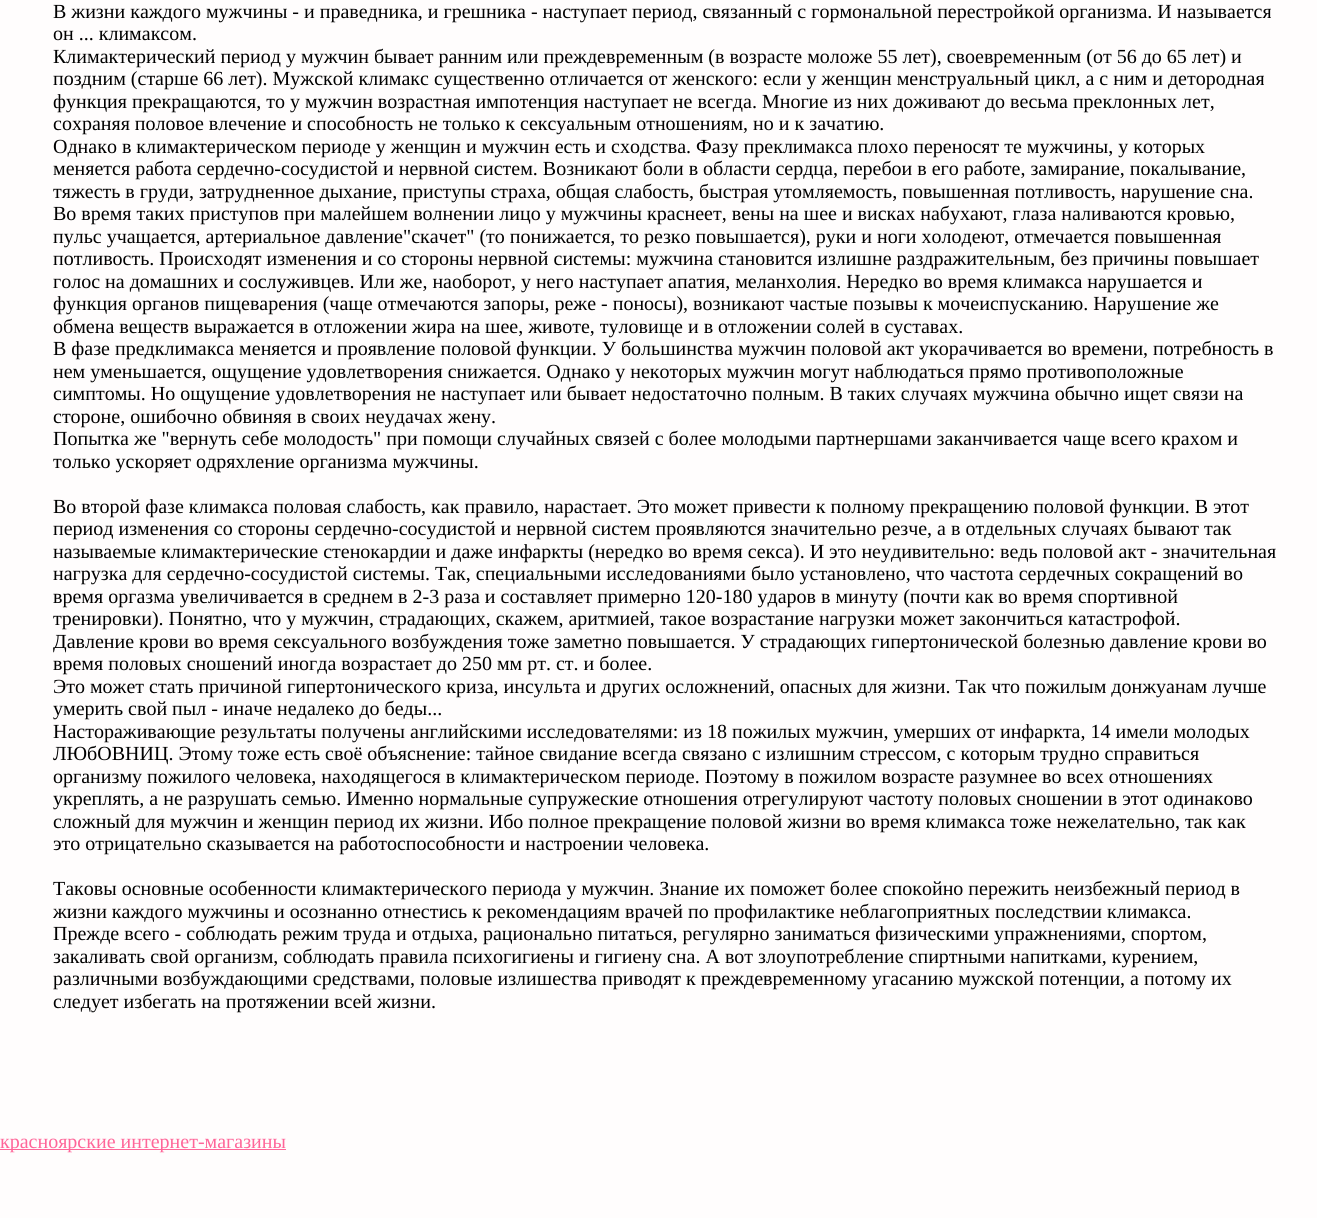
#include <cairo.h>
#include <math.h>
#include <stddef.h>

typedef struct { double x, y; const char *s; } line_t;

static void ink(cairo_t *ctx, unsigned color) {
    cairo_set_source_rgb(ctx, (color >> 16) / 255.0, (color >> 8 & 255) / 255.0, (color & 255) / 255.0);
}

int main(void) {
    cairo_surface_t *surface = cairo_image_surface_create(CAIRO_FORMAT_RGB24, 1317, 1218);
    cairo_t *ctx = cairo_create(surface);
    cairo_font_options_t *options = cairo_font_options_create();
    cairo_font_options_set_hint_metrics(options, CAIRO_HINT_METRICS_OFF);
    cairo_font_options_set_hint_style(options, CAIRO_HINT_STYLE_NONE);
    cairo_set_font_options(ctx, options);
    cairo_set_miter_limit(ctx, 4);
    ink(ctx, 0xFFFDFD);
    cairo_paint(ctx);
    cairo_select_font_face(ctx, "Liberation Serif", CAIRO_FONT_SLANT_NORMAL, CAIRO_FONT_WEIGHT_NORMAL);
    cairo_set_font_size(ctx, 20);
    ink(ctx, 0x000000);
    {
        static const line_t items[] = {
            {53, 18, "В жизни каждого мужчины - и праведника, и грешника - наступает период, связанный с гормональной перестройкой организма. И называется"},
            {53, 40, "он ... климаксом."},
            {53, 63, "Климактерический период у мужчин бывает ранним или преждевременным (в возрасте моложе 55 лет), своевременным (от 56 до 65 лет) и"},
            {53, 85, "поздним (старше 66 лет). Мужской климакс существенно отличается от женского: если у женщин менструальный цикл, а с ним и детородная"},
            {53, 108, "функция прекращаются, то у мужчин возрастная импотенция наступает не всегда. Многие из них доживают до весьма преклонных лет,"},
            {53, 130, "сохраняя половое влечение и способность не только к сексуальным отношениям, но и к зачатию."},
            {53, 153, "Однако в климактерическом периоде у женщин и мужчин есть и сходства. Фазу преклимакса плохо переносят те мужчины, у которых"},
            {53, 175, "меняется работа сердечно-сосудистой и нервной систем. Возникают боли в области сердца, перебои в его работе, замирание, покалывание,"},
            {53, 198, "тяжесть в груди, затрудненное дыхание, приступы страха, общая слабость, быстрая утомляемость, повышенная потливость, нарушение сна."},
            {53, 220, "Во время таких приступов при малейшем волнении лицо у мужчины краснеет, вены на шее и висках набухают, глаза наливаются кровью,"},
            {53, 243, "пульс учащается, артериальное давление\"скачет\" (то понижается, то резко повышается), руки и ноги холодеют, отмечается повышенная"},
            {53, 265, "потливость. Происходят изменения и со стороны нервной системы: мужчина становится излишне раздражительным, без причины повышает"},
            {53, 288, "голос на домашних и сослуживцев. Или же, наоборот, у него наступает апатия, меланхолия. Нередко во время климакса нарушается и"},
            {53, 310, "функция органов пищеварения (чаще отмечаются запоры, реже - поносы), возникают частые позывы к мочеиспусканию. Нарушение же"},
            {53, 333, "обмена веществ выражается в отложении жира на шее, животе, туловище и в отложении солей в суставах."},
            {53, 355, "В фазе предклимакса меняется и проявление половой функции. У большинства мужчин половой акт укорачивается во времени, потребность в"},
            {53, 378, "нем уменьшается, ощущение удовлетворения снижается. Однако у некоторых мужчин могут наблюдаться прямо противоположные"},
            {53, 400, "симптомы. Но ощущение удовлетворения не наступает или бывает недостаточно полным. В таких случаях мужчина обычно ищет связи на"},
            {53, 423, "стороне, ошибочно обвиняя в своих неудачах жену."},
            {53, 445, "Попытка же \"вернуть себе молодость\" при помощи случайных связей с более молодыми партнершами заканчивается чаще всего крахом и"},
            {53, 468, "только ускоряет одряхление организма мужчины."},
            {53, 513, "Во второй фазе климакса половая слабость, как правило, нарастает. Это может привести к полному прекращению половой функции. В этот"},
            {53, 535, "период изменения со стороны сердечно-сосудистой и нервной систем проявляются значительно резче, а в отдельных случаях бывают так"},
            {53, 558, "называемые климактерические стенокардии и даже инфаркты (нередко во время секса). И это неудивительно: ведь половой акт - значительная"},
            {53, 580, "нагрузка для сердечно-сосудистой системы. Так, специальными исследованиями было установлено, что частота сердечных сокращений во"},
            {53, 603, "время оргазма увеличивается в среднем в 2-3 раза и составляет примерно 120-180 ударов в минуту (почти как во время спортивной"},
            {53, 625, "тренировки). Понятно, что у мужчин, страдающих, скажем, аритмией, такое возрастание нагрузки может закончиться катастрофой."},
            {53, 648, "Давление крови во время сексуального возбуждения тоже заметно повышается. У страдающих гипертонической болезнью давление крови во"},
            {53, 670, "время половых сношений иногда возрастает до 250 мм рт. ст. и более."},
            {53, 693, "Это может стать причиной гипертонического криза, инсульта и других осложнений, опасных для жизни. Так что пожилым донжуанам лучше"},
            {53, 715, "умерить свой пыл - иначе недалеко до беды..."},
            {53, 738, "Настораживающие результаты получены английскими исследователями: из 18 пожилых мужчин, умерших от инфаркта, 14 имели молодых"},
            {53, 760, "ЛЮбОВНИЦ. Этому тоже есть своё объяснение: тайное свидание всегда связано с излишним стрессом, с которым трудно справиться"},
            {53, 783, "организму пожилого человека, находящегося в климактерическом периоде. Поэтому в пожилом возрасте разумнее во всех отношениях"},
            {53, 805, "укреплять, а не разрушать семью. Именно нормальные супружеские отношения отрегулируют частоту половых сношении в этот одинаково"},
            {53, 828, "сложный для мужчин и женщин период их жизни. Ибо полное прекращение половой жизни во время климакса тоже нежелательно, так как"},
            {53, 850, "это отрицательно сказывается на работоспособности и настроении человека."},
            {53, 895, "Таковы основные особенности климактерического периода у мужчин. Знание их поможет более спокойно пережить неизбежный период в"},
            {53, 918, "жизни каждого мужчины и осознанно отнестись к рекомендациям врачей по профилактике неблагоприятных последствии климакса."},
            {53, 940, "Прежде всего - соблюдать режим труда и отдыха, рационально питаться, регулярно заниматься физическими упражнениями, спортом,"},
            {53, 963, "закаливать свой организм, соблюдать правила психогигиены и гигиену сна. А вот злоупотребление спиртными напитками, курением,"},
            {53, 985, "различными возбуждающими средствами, половые излишества приводят к преждевременному угасанию мужской потенции, а потому их"},
            {53, 1008, "следует избегать на протяжении всей жизни."},
        };
        for (size_t i = 0; i < sizeof items / sizeof *items; i++) {
            cairo_move_to(ctx, items[i].x, items[i].y);
            cairo_show_text(ctx, items[i].s);
        }
    }
    ink(ctx, 0xFF6699);
    cairo_rectangle(ctx, 0, 1149, 286, 1);
    cairo_fill(ctx);
    cairo_move_to(ctx, 0, 1148);
    cairo_show_text(ctx, "красноярские интернет-магазины");
    cairo_surface_write_to_png(surface, "image.png");
    cairo_font_options_destroy(options);
    cairo_destroy(ctx);
    cairo_surface_destroy(surface);
    return 0;
}
